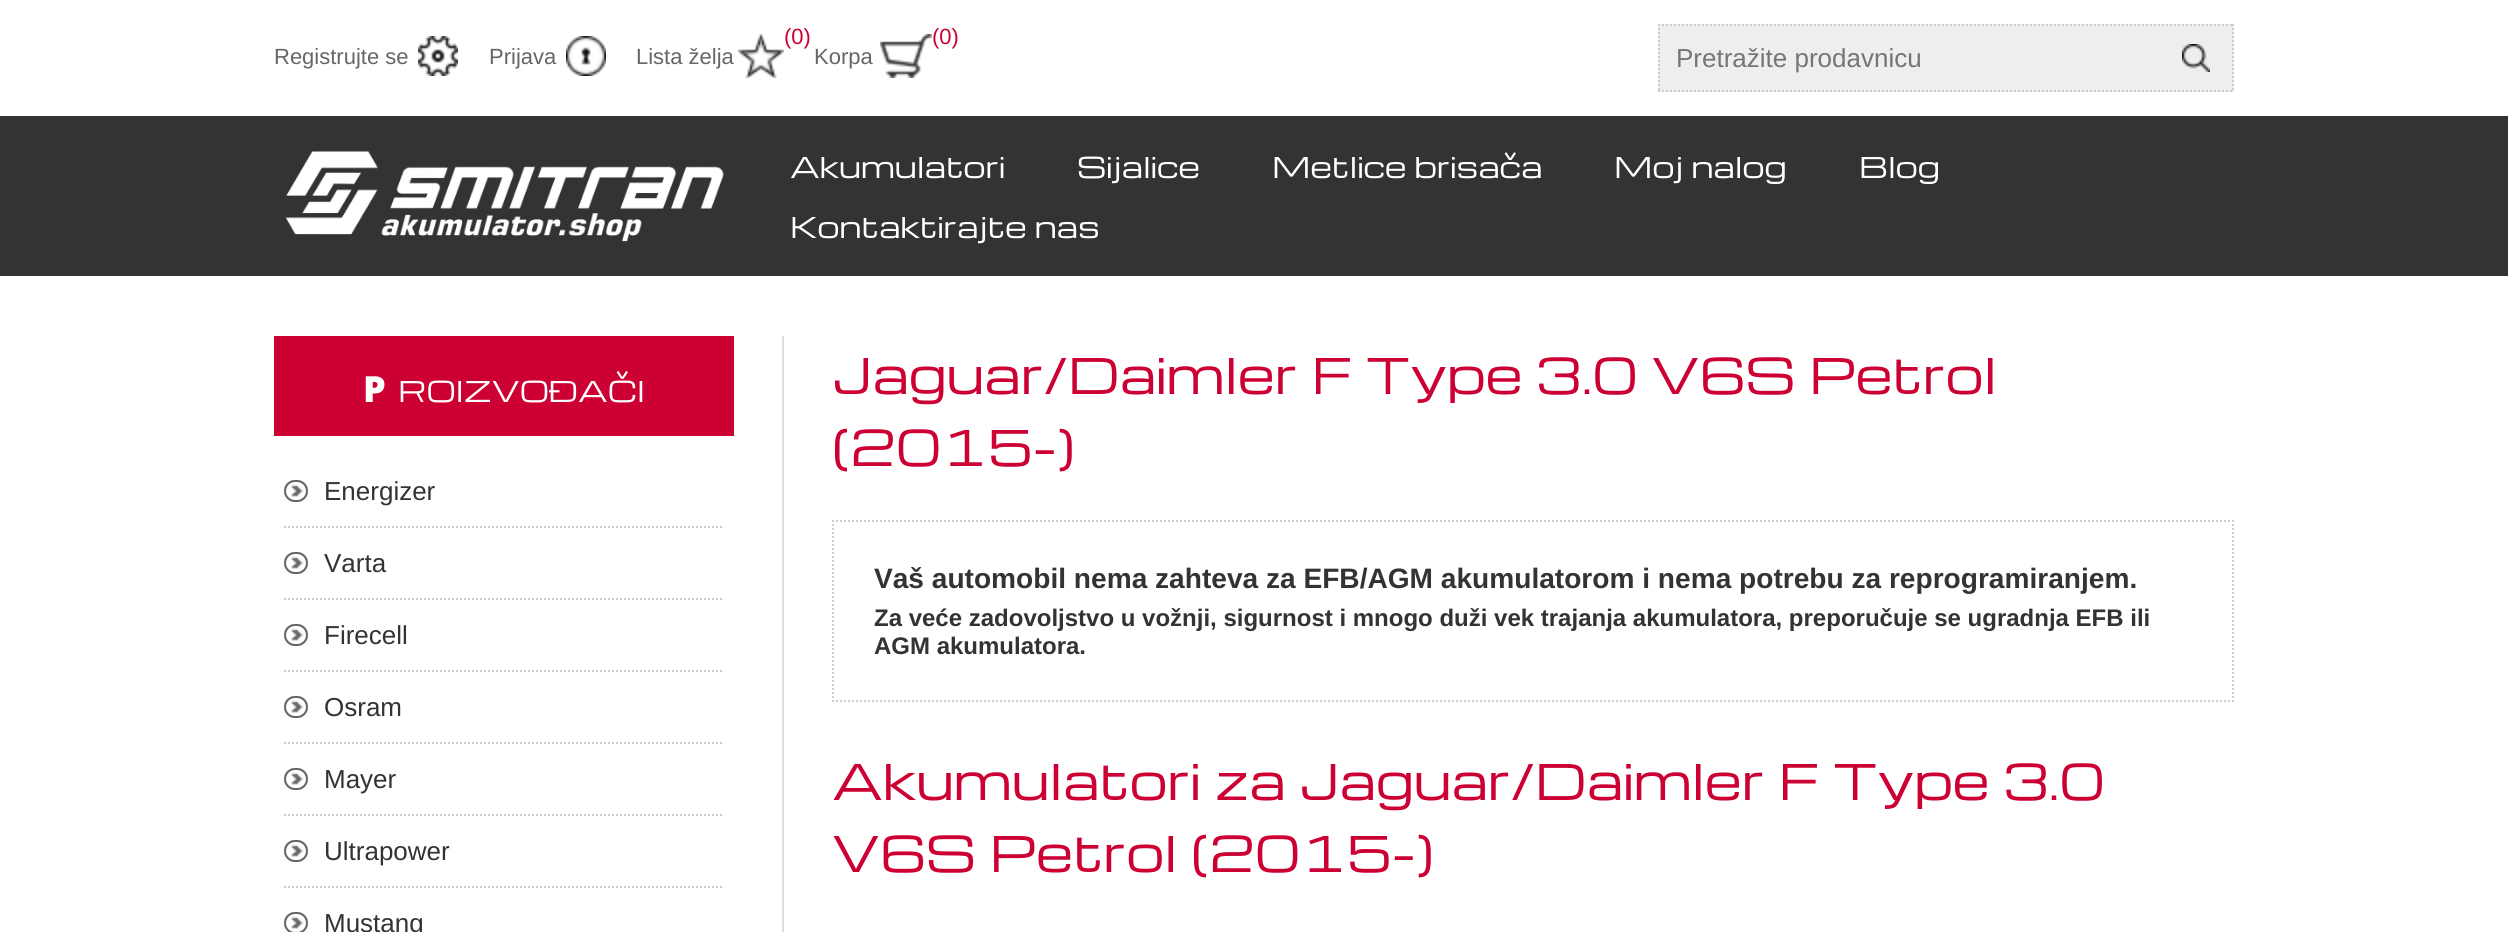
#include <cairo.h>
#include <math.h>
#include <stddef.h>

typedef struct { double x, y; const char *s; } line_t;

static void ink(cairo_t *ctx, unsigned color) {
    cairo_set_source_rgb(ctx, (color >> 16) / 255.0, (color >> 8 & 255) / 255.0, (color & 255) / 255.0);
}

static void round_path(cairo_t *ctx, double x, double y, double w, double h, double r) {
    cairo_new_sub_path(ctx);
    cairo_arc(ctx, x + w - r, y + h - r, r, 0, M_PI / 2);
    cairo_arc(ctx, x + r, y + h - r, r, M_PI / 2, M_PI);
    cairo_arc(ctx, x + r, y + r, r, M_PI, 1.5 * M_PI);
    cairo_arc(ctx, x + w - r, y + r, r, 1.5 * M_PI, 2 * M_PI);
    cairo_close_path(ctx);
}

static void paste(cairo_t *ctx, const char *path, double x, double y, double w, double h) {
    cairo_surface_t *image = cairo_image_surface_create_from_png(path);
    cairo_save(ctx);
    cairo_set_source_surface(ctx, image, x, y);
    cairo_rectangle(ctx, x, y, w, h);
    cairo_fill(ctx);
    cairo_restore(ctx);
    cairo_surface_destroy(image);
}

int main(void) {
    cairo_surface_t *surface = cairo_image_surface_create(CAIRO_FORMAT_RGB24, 2508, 932);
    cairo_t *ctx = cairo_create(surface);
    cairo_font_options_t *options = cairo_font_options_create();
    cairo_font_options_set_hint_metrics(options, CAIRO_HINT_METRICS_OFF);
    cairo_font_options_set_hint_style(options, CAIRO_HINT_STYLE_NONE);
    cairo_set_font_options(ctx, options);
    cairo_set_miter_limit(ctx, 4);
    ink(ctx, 0xFFFFFF);
    cairo_paint(ctx);
    paste(ctx, "media/1.png", 418, 36, 40, 40);
    cairo_select_font_face(ctx, "Liberation Sans", CAIRO_FONT_SLANT_NORMAL, CAIRO_FONT_WEIGHT_NORMAL);
    cairo_set_font_size(ctx, 22);
    ink(ctx, 0x666666);
    cairo_move_to(ctx, 274, 64);
    cairo_show_text(ctx, "Registrujte se");
    paste(ctx, "media/2.png", 566, 36, 40, 40);
    cairo_move_to(ctx, 489, 64);
    cairo_show_text(ctx, "Prijava");
    paste(ctx, "media/3.png", 738, 34, 46, 44);
    ink(ctx, 0xCC0033);
    cairo_move_to(ctx, 784, 44);
    cairo_show_text(ctx, "(0)");
    ink(ctx, 0x666666);
    cairo_move_to(ctx, 636, 64);
    cairo_show_text(ctx, "Lista želja");
    paste(ctx, "media/4.png", 880, 34, 52, 44);
    ink(ctx, 0xCC0033);
    cairo_move_to(ctx, 932, 44);
    cairo_show_text(ctx, "(0)");
    ink(ctx, 0x666666);
    cairo_move_to(ctx, 814, 64);
    cairo_show_text(ctx, "Korpa");
    ink(ctx, 0xEEEEEE);
    cairo_rectangle(ctx, 1658, 24, 576, 68);
    cairo_fill(ctx);
    cairo_new_path(ctx);
    cairo_move_to(ctx, 1658, 25);
    cairo_line_to(ctx, 2234, 25);
    ink(ctx, 0xCCCCCC);
    cairo_set_dash(ctx, (double[]){2, 2}, 2, 0);
    cairo_stroke(ctx);
    cairo_new_path(ctx);
    cairo_move_to(ctx, 2233, 24);
    cairo_line_to(ctx, 2233, 92);
    cairo_stroke(ctx);
    cairo_new_path(ctx);
    cairo_move_to(ctx, 1658, 91);
    cairo_line_to(ctx, 2234, 91);
    cairo_stroke(ctx);
    cairo_new_path(ctx);
    cairo_move_to(ctx, 1659, 24);
    cairo_line_to(ctx, 1659, 92);
    cairo_stroke(ctx);
    cairo_set_font_size(ctx, 26);
    ink(ctx, 0x757575);
    cairo_move_to(ctx, 1676, 67);
    cairo_show_text(ctx, "Pretražite prodavnicu");
    paste(ctx, "media/5.png", 2182, 44, 28, 28);
    ink(ctx, 0x333333);
    cairo_rectangle(ctx, 0, 116, 2508, 160);
    cairo_fill(ctx);
    paste(ctx, "media/6.png", 285, 151, 439, 91);
    cairo_select_font_face(ctx, "Michroma", CAIRO_FONT_SLANT_NORMAL, CAIRO_FONT_WEIGHT_NORMAL);
    cairo_set_font_size(ctx, 28);
    ink(ctx, 0xFFFFFF);
    {
        static const line_t items[] = {
            {790, 178, "Akumulatori"},
            {1077, 178, "Sijalice"},
            {1272, 178, "Metlice brisača"},
            {1614, 178, "Moj nalog"},
            {1859, 178, "Blog"},
            {790, 238, "Kontaktirajte nas"},
        };
        for (size_t i = 0; i < sizeof items / sizeof *items; i++) {
            cairo_move_to(ctx, items[i].x, items[i].y);
            cairo_show_text(ctx, items[i].s);
        }
    }
    ink(ctx, 0xCC0033);
    cairo_rectangle(ctx, 274, 336, 460, 100);
    cairo_fill(ctx);
    cairo_select_font_face(ctx, "Noto Sans Black", CAIRO_FONT_SLANT_NORMAL, CAIRO_FONT_WEIGHT_NORMAL);
    cairo_set_font_size(ctx, 36);
    ink(ctx, 0xFFFFFF);
    cairo_move_to(ctx, 363, 402);
    cairo_show_text(ctx, "P");
    cairo_select_font_face(ctx, "Michroma", CAIRO_FONT_SLANT_NORMAL, CAIRO_FONT_WEIGHT_NORMAL);
    cairo_set_font_size(ctx, 28);
    cairo_move_to(ctx, 398, 402);
    cairo_show_text(ctx, "ROIZVOĐAČI");
    cairo_new_path(ctx);
    cairo_move_to(ctx, 284, 527);
    cairo_line_to(ctx, 724, 527);
    ink(ctx, 0xCCCCCC);
    cairo_stroke(ctx);
    ink(ctx, 0x666666);
    round_path(ctx, 284, 480, 24, 22, 11);
    cairo_fill(ctx);
    paste(ctx, "media/7.png", 284, 480, 24, 22);
    round_path(ctx, 285, 481, 22, 20, 10);
    cairo_set_dash(ctx, NULL, 0, 0);
    cairo_stroke(ctx);
    cairo_select_font_face(ctx, "Liberation Sans", CAIRO_FONT_SLANT_NORMAL, CAIRO_FONT_WEIGHT_NORMAL);
    cairo_set_font_size(ctx, 26);
    ink(ctx, 0x333333);
    cairo_move_to(ctx, 324, 500);
    cairo_show_text(ctx, "Energizer");
    cairo_new_path(ctx);
    cairo_move_to(ctx, 284, 599);
    cairo_line_to(ctx, 724, 599);
    ink(ctx, 0xCCCCCC);
    cairo_set_dash(ctx, (double[]){2, 2}, 2, 0);
    cairo_stroke(ctx);
    ink(ctx, 0x666666);
    round_path(ctx, 284, 552, 24, 22, 11);
    cairo_fill(ctx);
    paste(ctx, "media/7.png", 284, 552, 24, 22);
    round_path(ctx, 285, 553, 22, 20, 10);
    cairo_set_dash(ctx, NULL, 0, 0);
    cairo_stroke(ctx);
    ink(ctx, 0x333333);
    cairo_move_to(ctx, 324, 572);
    cairo_show_text(ctx, "Varta");
    cairo_new_path(ctx);
    cairo_move_to(ctx, 284, 671);
    cairo_line_to(ctx, 724, 671);
    ink(ctx, 0xCCCCCC);
    cairo_set_dash(ctx, (double[]){2, 2}, 2, 0);
    cairo_stroke(ctx);
    ink(ctx, 0x666666);
    round_path(ctx, 284, 624, 24, 22, 11);
    cairo_fill(ctx);
    paste(ctx, "media/7.png", 284, 624, 24, 22);
    round_path(ctx, 285, 625, 22, 20, 10);
    cairo_set_dash(ctx, NULL, 0, 0);
    cairo_stroke(ctx);
    ink(ctx, 0x333333);
    cairo_move_to(ctx, 324, 644);
    cairo_show_text(ctx, "Firecell");
    cairo_new_path(ctx);
    cairo_move_to(ctx, 284, 743);
    cairo_line_to(ctx, 724, 743);
    ink(ctx, 0xCCCCCC);
    cairo_set_dash(ctx, (double[]){2, 2}, 2, 0);
    cairo_stroke(ctx);
    ink(ctx, 0x666666);
    round_path(ctx, 284, 696, 24, 22, 11);
    cairo_fill(ctx);
    paste(ctx, "media/7.png", 284, 696, 24, 22);
    round_path(ctx, 285, 697, 22, 20, 10);
    cairo_set_dash(ctx, NULL, 0, 0);
    cairo_stroke(ctx);
    ink(ctx, 0x333333);
    cairo_move_to(ctx, 324, 716);
    cairo_show_text(ctx, "Osram");
    cairo_new_path(ctx);
    cairo_move_to(ctx, 284, 815);
    cairo_line_to(ctx, 724, 815);
    ink(ctx, 0xCCCCCC);
    cairo_set_dash(ctx, (double[]){2, 2}, 2, 0);
    cairo_stroke(ctx);
    ink(ctx, 0x666666);
    round_path(ctx, 284, 768, 24, 22, 11);
    cairo_fill(ctx);
    paste(ctx, "media/7.png", 284, 768, 24, 22);
    round_path(ctx, 285, 769, 22, 20, 10);
    cairo_set_dash(ctx, NULL, 0, 0);
    cairo_stroke(ctx);
    ink(ctx, 0x333333);
    cairo_move_to(ctx, 324, 788);
    cairo_show_text(ctx, "Mayer");
    cairo_new_path(ctx);
    cairo_move_to(ctx, 284, 887);
    cairo_line_to(ctx, 724, 887);
    ink(ctx, 0xCCCCCC);
    cairo_set_dash(ctx, (double[]){2, 2}, 2, 0);
    cairo_stroke(ctx);
    ink(ctx, 0x666666);
    round_path(ctx, 284, 840, 24, 22, 11);
    cairo_fill(ctx);
    paste(ctx, "media/7.png", 284, 840, 24, 22);
    round_path(ctx, 285, 841, 22, 20, 10);
    cairo_set_dash(ctx, NULL, 0, 0);
    cairo_stroke(ctx);
    ink(ctx, 0x333333);
    cairo_move_to(ctx, 324, 860);
    cairo_show_text(ctx, "Ultrapower");
    ink(ctx, 0x666666);
    round_path(ctx, 284, 912, 24, 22, 11);
    cairo_fill(ctx);
    paste(ctx, "media/8.png", 284, 912, 24, 20);
    round_path(ctx, 285, 913, 22, 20, 10);
    cairo_stroke(ctx);
    ink(ctx, 0x333333);
    cairo_move_to(ctx, 324, 932);
    cairo_show_text(ctx, "Mustang");
    ink(ctx, 0xDDDDDD);
    cairo_rectangle(ctx, 782, 336, 2, 596);
    cairo_fill(ctx);
    cairo_select_font_face(ctx, "Michroma", CAIRO_FONT_SLANT_NORMAL, CAIRO_FONT_WEIGHT_NORMAL);
    cairo_set_font_size(ctx, 48);
    ink(ctx, 0xCC0033);
    cairo_move_to(ctx, 832, 394);
    cairo_show_text(ctx, "Jaguar/Daimler F Type 3.0 V6S Petrol");
    cairo_move_to(ctx, 832, 466);
    cairo_show_text(ctx, "(2015-)");
    cairo_new_path(ctx);
    cairo_move_to(ctx, 832, 521);
    cairo_line_to(ctx, 2234, 521);
    ink(ctx, 0xCCCCCC);
    cairo_set_dash(ctx, (double[]){2, 2}, 2, 0);
    cairo_stroke(ctx);
    cairo_new_path(ctx);
    cairo_move_to(ctx, 2233, 520);
    cairo_line_to(ctx, 2233, 702);
    cairo_stroke(ctx);
    cairo_new_path(ctx);
    cairo_move_to(ctx, 832, 701);
    cairo_line_to(ctx, 2234, 701);
    cairo_stroke(ctx);
    cairo_new_path(ctx);
    cairo_move_to(ctx, 833, 520);
    cairo_line_to(ctx, 833, 702);
    cairo_stroke(ctx);
    cairo_select_font_face(ctx, "Liberation Sans", CAIRO_FONT_SLANT_NORMAL, CAIRO_FONT_WEIGHT_BOLD);
    cairo_set_font_size(ctx, 28.1);
    ink(ctx, 0x333333);
    cairo_move_to(ctx, 874, 588);
    cairo_show_text(ctx, "Vaš automobil nema zahteva za EFB/AGM akumulatorom i nema potrebu za reprogramiranjem.");
    cairo_set_font_size(ctx, 24);
    cairo_move_to(ctx, 874, 626);
    cairo_show_text(ctx, "Za veće zadovoljstvo u vožnji, sigurnost i mnogo duži vek trajanja akumulatora, preporučuje se ugradnja EFB ili");
    cairo_move_to(ctx, 874, 654);
    cairo_show_text(ctx, "AGM akumulatora.");
    cairo_select_font_face(ctx, "Michroma", CAIRO_FONT_SLANT_NORMAL, CAIRO_FONT_WEIGHT_NORMAL);
    cairo_set_font_size(ctx, 48);
    ink(ctx, 0xCC0033);
    cairo_move_to(ctx, 832, 800);
    cairo_show_text(ctx, "Akumulatori za Jaguar/Daimler F Type 3.0");
    cairo_move_to(ctx, 832, 872);
    cairo_show_text(ctx, "V6S Petrol (2015-)");
    cairo_surface_write_to_png(surface, "image.png");
    cairo_font_options_destroy(options);
    cairo_destroy(ctx);
    cairo_surface_destroy(surface);
    return 0;
}
